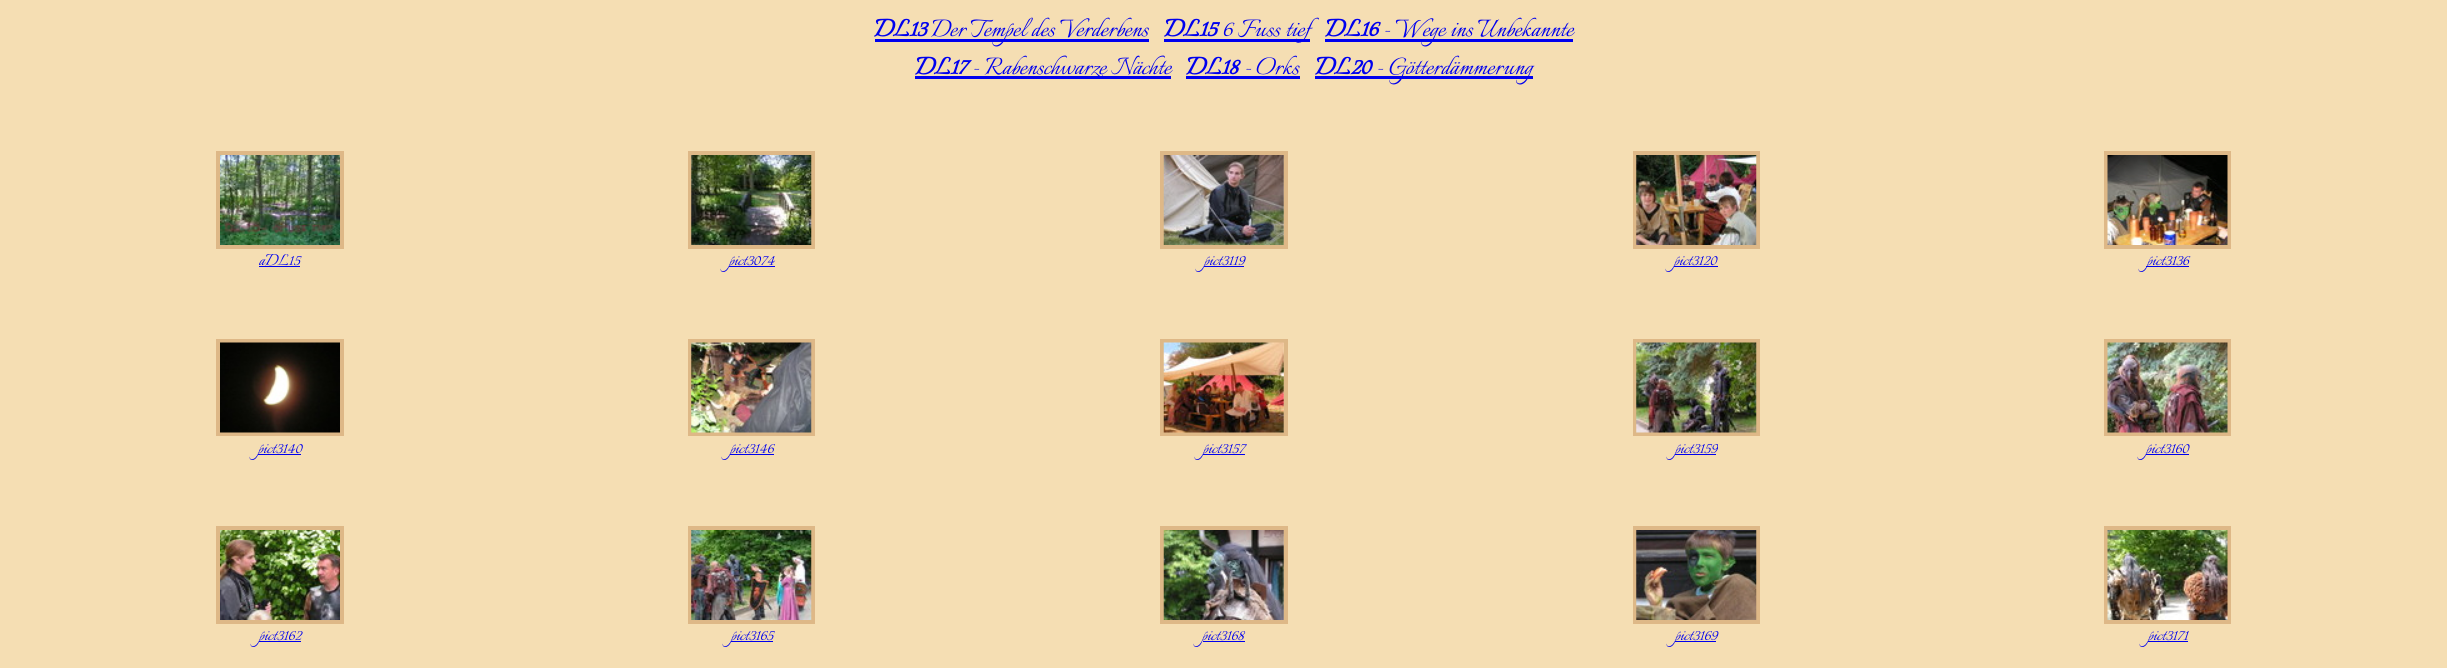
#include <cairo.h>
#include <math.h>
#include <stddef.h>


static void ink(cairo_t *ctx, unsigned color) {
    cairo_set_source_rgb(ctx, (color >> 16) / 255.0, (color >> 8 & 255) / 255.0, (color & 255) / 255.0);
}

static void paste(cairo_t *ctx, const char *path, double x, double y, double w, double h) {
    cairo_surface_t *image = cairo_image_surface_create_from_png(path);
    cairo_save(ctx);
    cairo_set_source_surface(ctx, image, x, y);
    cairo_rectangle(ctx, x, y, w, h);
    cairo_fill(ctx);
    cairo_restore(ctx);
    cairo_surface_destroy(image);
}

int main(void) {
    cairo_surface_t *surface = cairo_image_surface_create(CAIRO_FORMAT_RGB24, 2447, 668);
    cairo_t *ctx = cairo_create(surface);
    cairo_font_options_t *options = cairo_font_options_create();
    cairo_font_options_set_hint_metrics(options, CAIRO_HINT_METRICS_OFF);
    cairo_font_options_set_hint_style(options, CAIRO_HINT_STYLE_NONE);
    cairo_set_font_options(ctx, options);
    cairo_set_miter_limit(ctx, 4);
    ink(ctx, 0xF5DEB3);
    cairo_paint(ctx);
    cairo_select_font_face(ctx, "Italianno", CAIRO_FONT_SLANT_NORMAL, CAIRO_FONT_WEIGHT_BOLD);
    cairo_set_font_size(ctx, 30);
    ink(ctx, 0x0000EE);
    cairo_move_to(ctx, 874, 36);
    cairo_show_text(ctx, "DL13");
    cairo_rectangle(ctx, 875, 39, 274, 3);
    cairo_fill(ctx);
    cairo_select_font_face(ctx, "Italianno", CAIRO_FONT_SLANT_NORMAL, CAIRO_FONT_WEIGHT_NORMAL);
    cairo_move_to(ctx, 931, 36);
    cairo_show_text(ctx, "Der Tempel des Verderbens");
    cairo_select_font_face(ctx, "Italianno", CAIRO_FONT_SLANT_NORMAL, CAIRO_FONT_WEIGHT_BOLD);
    cairo_move_to(ctx, 1164, 36);
    cairo_show_text(ctx, "DL15");
    cairo_rectangle(ctx, 1164, 39, 146, 3);
    cairo_fill(ctx);
    cairo_select_font_face(ctx, "Italianno", CAIRO_FONT_SLANT_NORMAL, CAIRO_FONT_WEIGHT_NORMAL);
    cairo_move_to(ctx, 1222, 36);
    cairo_show_text(ctx, "6 Fuss tief");
    cairo_select_font_face(ctx, "Italianno", CAIRO_FONT_SLANT_NORMAL, CAIRO_FONT_WEIGHT_BOLD);
    cairo_move_to(ctx, 1325, 36);
    cairo_show_text(ctx, "DL16");
    cairo_rectangle(ctx, 1325, 39, 248, 3);
    cairo_fill(ctx);
    cairo_select_font_face(ctx, "Italianno", CAIRO_FONT_SLANT_NORMAL, CAIRO_FONT_WEIGHT_NORMAL);
    cairo_move_to(ctx, 1383, 36);
    cairo_show_text(ctx, "- Wege ins Unbekannte");
    cairo_select_font_face(ctx, "Italianno", CAIRO_FONT_SLANT_NORMAL, CAIRO_FONT_WEIGHT_BOLD);
    cairo_move_to(ctx, 915, 74);
    cairo_show_text(ctx, "DL17");
    cairo_rectangle(ctx, 915, 76, 256, 3);
    cairo_fill(ctx);
    cairo_select_font_face(ctx, "Italianno", CAIRO_FONT_SLANT_NORMAL, CAIRO_FONT_WEIGHT_NORMAL);
    cairo_move_to(ctx, 972, 74);
    cairo_show_text(ctx, "- Rabenschwarze Nächte");
    cairo_select_font_face(ctx, "Italianno", CAIRO_FONT_SLANT_NORMAL, CAIRO_FONT_WEIGHT_BOLD);
    cairo_move_to(ctx, 1186, 74);
    cairo_show_text(ctx, "DL18");
    cairo_rectangle(ctx, 1186, 76, 114, 3);
    cairo_fill(ctx);
    cairo_select_font_face(ctx, "Italianno", CAIRO_FONT_SLANT_NORMAL, CAIRO_FONT_WEIGHT_NORMAL);
    cairo_move_to(ctx, 1244, 74);
    cairo_show_text(ctx, "- Orks");
    cairo_select_font_face(ctx, "Italianno", CAIRO_FONT_SLANT_NORMAL, CAIRO_FONT_WEIGHT_BOLD);
    cairo_move_to(ctx, 1315, 74);
    cairo_show_text(ctx, "DL20");
    cairo_rectangle(ctx, 1315, 76, 218, 3);
    cairo_fill(ctx);
    cairo_select_font_face(ctx, "Italianno", CAIRO_FONT_SLANT_NORMAL, CAIRO_FONT_WEIGHT_NORMAL);
    cairo_move_to(ctx, 1376, 74);
    cairo_show_text(ctx, "- Götterdämmerung");
    cairo_rectangle(ctx, 218, 153, 124, 94);
    ink(ctx, 0xDEB887);
    cairo_set_line_width(ctx, 4);
    cairo_stroke(ctx);
    paste(ctx, "media/1.png", 220, 155, 120, 90);
    cairo_set_font_size(ctx, 20);
    ink(ctx, 0x0000EE);
    cairo_move_to(ctx, 259, 265);
    cairo_show_text(ctx, "aDL15");
    cairo_rectangle(ctx, 259, 266, 41, 1);
    cairo_fill(ctx);
    cairo_rectangle(ctx, 690, 153, 123, 94);
    ink(ctx, 0xDEB887);
    cairo_stroke(ctx);
    paste(ctx, "media/2.png", 691, 155, 121, 90);
    ink(ctx, 0x0000EE);
    cairo_rectangle(ctx, 729, 266, 46, 1);
    cairo_fill(ctx);
    cairo_move_to(ctx, 729, 265);
    cairo_show_text(ctx, "pict3074");
    cairo_rectangle(ctx, 1162, 153, 124, 94);
    ink(ctx, 0xDEB887);
    cairo_stroke(ctx);
    paste(ctx, "media/3.png", 1163, 155, 121, 90);
    ink(ctx, 0x0000EE);
    cairo_rectangle(ctx, 1204, 266, 40, 1);
    cairo_fill(ctx);
    cairo_move_to(ctx, 1204, 265);
    cairo_show_text(ctx, "pict3119");
    cairo_rectangle(ctx, 1635, 153, 123, 94);
    ink(ctx, 0xDEB887);
    cairo_stroke(ctx);
    paste(ctx, "media/4.png", 1636, 155, 121, 90);
    ink(ctx, 0x0000EE);
    cairo_rectangle(ctx, 1674, 266, 44, 1);
    cairo_fill(ctx);
    cairo_move_to(ctx, 1674, 265);
    cairo_show_text(ctx, "pict3120");
    cairo_rectangle(ctx, 2106, 153, 123, 94);
    ink(ctx, 0xDEB887);
    cairo_stroke(ctx);
    paste(ctx, "media/5.png", 2107, 155, 121, 90);
    ink(ctx, 0x0000EE);
    cairo_rectangle(ctx, 2146, 266, 43, 1);
    cairo_fill(ctx);
    cairo_move_to(ctx, 2147, 265);
    cairo_show_text(ctx, "pict3136");
    cairo_rectangle(ctx, 218, 341, 124, 93);
    ink(ctx, 0xDEB887);
    cairo_stroke(ctx);
    paste(ctx, "media/6.png", 220, 342, 120, 91);
    ink(ctx, 0x0000EE);
    cairo_rectangle(ctx, 258, 454, 43, 1);
    cairo_fill(ctx);
    cairo_move_to(ctx, 258, 453);
    cairo_show_text(ctx, "pict3140");
    cairo_rectangle(ctx, 690, 341, 123, 93);
    ink(ctx, 0xDEB887);
    cairo_stroke(ctx);
    paste(ctx, "media/7.png", 691, 342, 121, 91);
    ink(ctx, 0x0000EE);
    cairo_rectangle(ctx, 730, 454, 44, 1);
    cairo_fill(ctx);
    cairo_move_to(ctx, 730, 453);
    cairo_show_text(ctx, "pict3146");
    cairo_rectangle(ctx, 1162, 341, 124, 93);
    ink(ctx, 0xDEB887);
    cairo_stroke(ctx);
    paste(ctx, "media/8.png", 1163, 342, 121, 91);
    ink(ctx, 0x0000EE);
    cairo_rectangle(ctx, 1203, 454, 42, 1);
    cairo_fill(ctx);
    cairo_move_to(ctx, 1203, 453);
    cairo_show_text(ctx, "pict3157");
    cairo_rectangle(ctx, 1635, 341, 123, 93);
    ink(ctx, 0xDEB887);
    cairo_stroke(ctx);
    paste(ctx, "media/9.png", 1636, 342, 121, 91);
    ink(ctx, 0x0000EE);
    cairo_rectangle(ctx, 1675, 454, 41, 1);
    cairo_fill(ctx);
    cairo_move_to(ctx, 1675, 453);
    cairo_show_text(ctx, "pict3159");
    cairo_rectangle(ctx, 2106, 341, 123, 93);
    ink(ctx, 0xDEB887);
    cairo_stroke(ctx);
    paste(ctx, "media/10.png", 2107, 342, 121, 91);
    ink(ctx, 0x0000EE);
    cairo_rectangle(ctx, 2146, 454, 43, 1);
    cairo_fill(ctx);
    cairo_move_to(ctx, 2146, 453);
    cairo_show_text(ctx, "pict3160");
    cairo_rectangle(ctx, 218, 528, 124, 94);
    ink(ctx, 0xDEB887);
    cairo_stroke(ctx);
    paste(ctx, "media/11.png", 220, 530, 120, 90);
    ink(ctx, 0x0000EE);
    cairo_rectangle(ctx, 259, 641, 42, 1);
    cairo_fill(ctx);
    cairo_move_to(ctx, 259, 640);
    cairo_show_text(ctx, "pict3162");
    cairo_rectangle(ctx, 690, 528, 123, 94);
    ink(ctx, 0xDEB887);
    cairo_stroke(ctx);
    paste(ctx, "media/12.png", 691, 530, 121, 90);
    ink(ctx, 0x0000EE);
    cairo_rectangle(ctx, 731, 641, 42, 1);
    cairo_fill(ctx);
    cairo_move_to(ctx, 731, 640);
    cairo_show_text(ctx, "pict3165");
    cairo_rectangle(ctx, 1162, 528, 124, 94);
    ink(ctx, 0xDEB887);
    cairo_stroke(ctx);
    paste(ctx, "media/13.png", 1163, 530, 121, 90);
    ink(ctx, 0x0000EE);
    cairo_rectangle(ctx, 1203, 641, 42, 1);
    cairo_fill(ctx);
    cairo_move_to(ctx, 1202, 640);
    cairo_show_text(ctx, "pict3168");
    cairo_rectangle(ctx, 1635, 528, 123, 94);
    ink(ctx, 0xDEB887);
    cairo_stroke(ctx);
    paste(ctx, "media/14.png", 1636, 530, 121, 90);
    ink(ctx, 0x0000EE);
    cairo_rectangle(ctx, 1675, 641, 41, 1);
    cairo_fill(ctx);
    cairo_move_to(ctx, 1675, 640);
    cairo_show_text(ctx, "pict3169");
    cairo_rectangle(ctx, 2106, 528, 123, 94);
    ink(ctx, 0xDEB887);
    cairo_stroke(ctx);
    paste(ctx, "media/15.png", 2107, 530, 121, 90);
    ink(ctx, 0x0000EE);
    cairo_rectangle(ctx, 2148, 641, 40, 1);
    cairo_fill(ctx);
    cairo_move_to(ctx, 2148, 640);
    cairo_show_text(ctx, "pict3171");
    cairo_surface_write_to_png(surface, "image.png");
    cairo_font_options_destroy(options);
    cairo_destroy(ctx);
    cairo_surface_destroy(surface);
    return 0;
}
